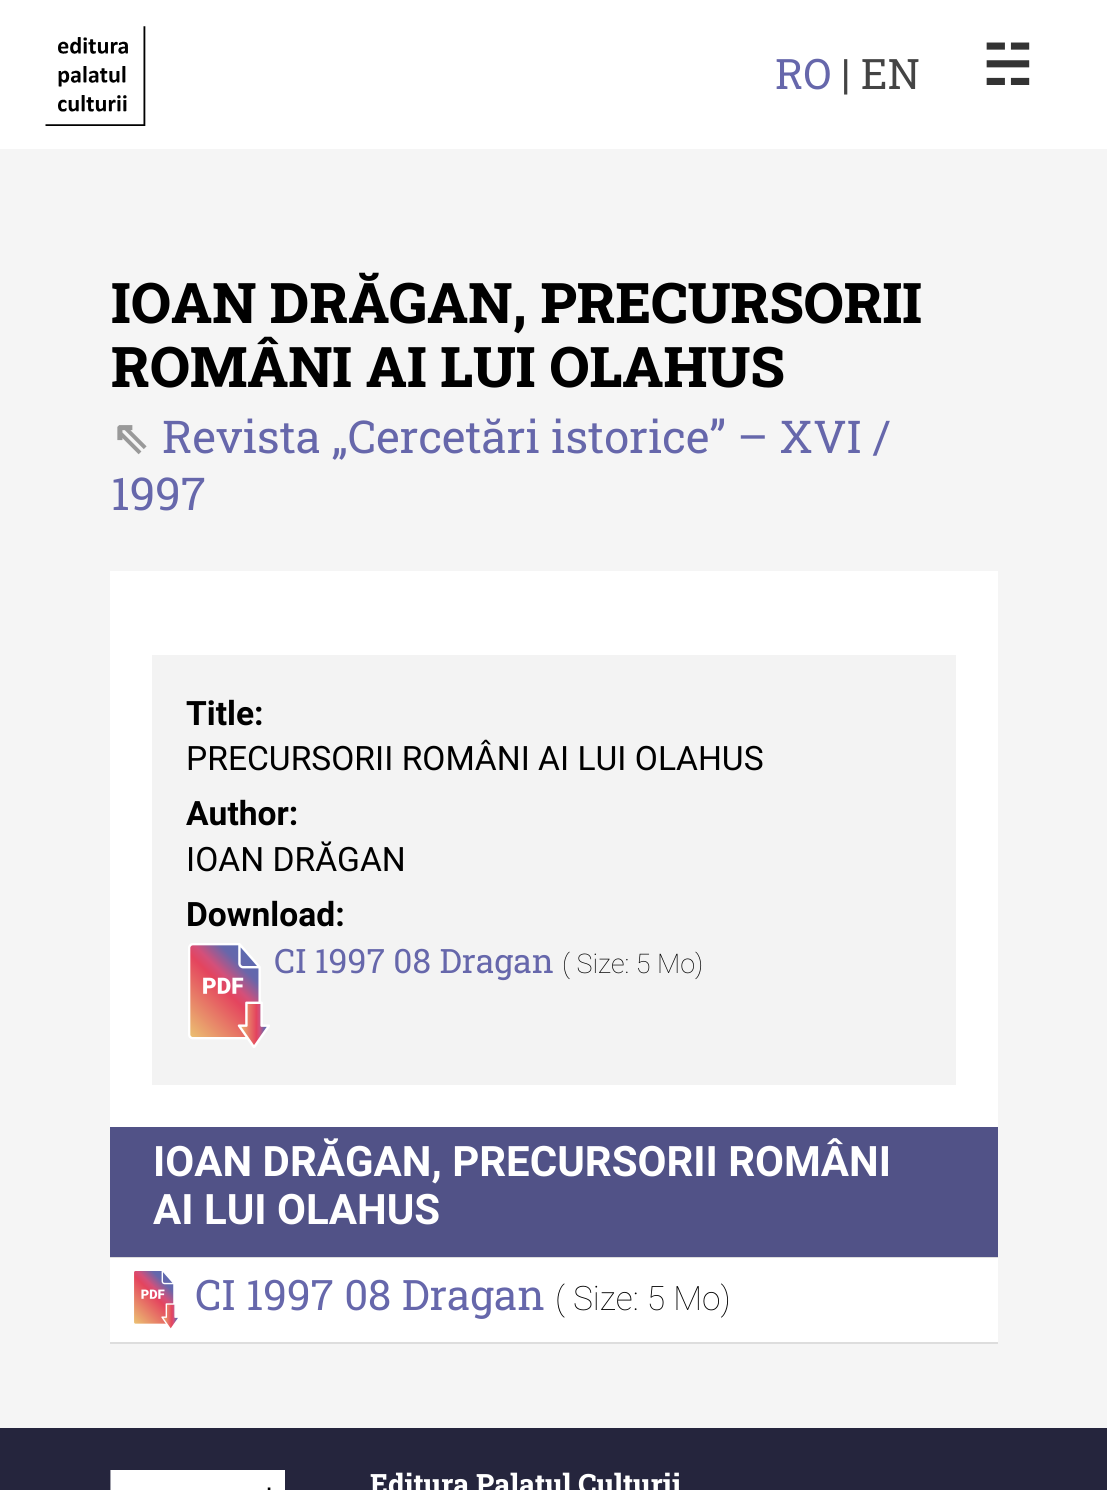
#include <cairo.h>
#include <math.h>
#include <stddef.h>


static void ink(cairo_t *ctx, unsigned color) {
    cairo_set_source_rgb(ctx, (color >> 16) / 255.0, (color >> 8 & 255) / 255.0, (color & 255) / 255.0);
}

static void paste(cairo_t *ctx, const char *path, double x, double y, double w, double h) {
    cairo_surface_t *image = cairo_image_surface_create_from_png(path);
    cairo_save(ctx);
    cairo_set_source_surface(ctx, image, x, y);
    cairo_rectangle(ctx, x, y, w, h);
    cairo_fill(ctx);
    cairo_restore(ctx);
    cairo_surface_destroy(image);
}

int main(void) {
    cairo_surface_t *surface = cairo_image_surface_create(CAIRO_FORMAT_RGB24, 1107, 1490);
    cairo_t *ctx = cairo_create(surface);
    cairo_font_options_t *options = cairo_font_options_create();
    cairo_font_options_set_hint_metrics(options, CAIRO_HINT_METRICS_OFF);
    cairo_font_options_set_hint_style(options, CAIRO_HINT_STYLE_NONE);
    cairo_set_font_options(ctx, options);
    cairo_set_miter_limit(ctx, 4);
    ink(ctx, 0xF5F5F5);
    cairo_paint(ctx);
    ink(ctx, 0xFFFFFF);
    cairo_rectangle(ctx, 0, 0, 1107, 149);
    cairo_fill(ctx);
    paste(ctx, "media/1.png", 45, 26, 101, 100);
    cairo_select_font_face(ctx, "Roboto Slab", CAIRO_FONT_SLANT_NORMAL, CAIRO_FONT_WEIGHT_NORMAL);
    cairo_set_font_size(ctx, 42);
    ink(ctx, 0x6667AB);
    cairo_move_to(ctx, 775, 89);
    cairo_show_text(ctx, "RO");
    ink(ctx, 0x444444);
    cairo_move_to(ctx, 841, 89);
    cairo_show_text(ctx, "| EN");
    cairo_select_font_face(ctx, "DejaVu Sans", CAIRO_FONT_SLANT_NORMAL, CAIRO_FONT_WEIGHT_BOLD);
    cairo_set_font_size(ctx, 56);
    ink(ctx, 0x333333);
    cairo_move_to(ctx, 982, 85);
    cairo_show_text(ctx, "☵");
    cairo_select_font_face(ctx, "Roboto Slab ExtraBold", CAIRO_FONT_SLANT_NORMAL, CAIRO_FONT_WEIGHT_NORMAL);
    ink(ctx, 0x000000);
    cairo_move_to(ctx, 111, 323);
    cairo_show_text(ctx, "IOAN DRĂGAN, PRECURSORII");
    cairo_move_to(ctx, 111, 387);
    cairo_show_text(ctx, "ROMÂNI AI LUI OLAHUS");
    cairo_select_font_face(ctx, "DejaVu Sans", CAIRO_FONT_SLANT_NORMAL, CAIRO_FONT_WEIGHT_BOLD);
    cairo_set_font_size(ctx, 45.25);
    ink(ctx, 0x999999);
    cairo_move_to(ctx, 111, 453);
    cairo_show_text(ctx, "⇖");
    cairo_select_font_face(ctx, "Roboto Slab", CAIRO_FONT_SLANT_NORMAL, CAIRO_FONT_WEIGHT_NORMAL);
    ink(ctx, 0x6667AB);
    cairo_move_to(ctx, 162, 453);
    cairo_show_text(ctx, "Revista „Cercetări istorice” – XVI /");
    cairo_move_to(ctx, 111, 510);
    cairo_show_text(ctx, "1997");
    ink(ctx, 0xFFFFFF);
    cairo_rectangle(ctx, 110, 571, 888, 556);
    cairo_fill(ctx);
    ink(ctx, 0xF3F3F3);
    cairo_rectangle(ctx, 152, 655, 804, 430);
    cairo_fill(ctx);
    cairo_select_font_face(ctx, "Roboto", CAIRO_FONT_SLANT_NORMAL, CAIRO_FONT_WEIGHT_BOLD);
    cairo_set_font_size(ctx, 33.6);
    ink(ctx, 0x000000);
    cairo_move_to(ctx, 186, 725);
    cairo_show_text(ctx, "Title:");
    cairo_select_font_face(ctx, "Roboto", CAIRO_FONT_SLANT_NORMAL, CAIRO_FONT_WEIGHT_NORMAL);
    cairo_move_to(ctx, 186, 770);
    cairo_show_text(ctx, "PRECURSORII ROMÂNI AI LUI OLAHUS");
    cairo_select_font_face(ctx, "Roboto", CAIRO_FONT_SLANT_NORMAL, CAIRO_FONT_WEIGHT_BOLD);
    cairo_move_to(ctx, 186, 825);
    cairo_show_text(ctx, "Author:");
    cairo_select_font_face(ctx, "Roboto", CAIRO_FONT_SLANT_NORMAL, CAIRO_FONT_WEIGHT_NORMAL);
    cairo_move_to(ctx, 186, 871);
    cairo_show_text(ctx, "IOAN DRĂGAN");
    cairo_select_font_face(ctx, "Roboto", CAIRO_FONT_SLANT_NORMAL, CAIRO_FONT_WEIGHT_BOLD);
    cairo_move_to(ctx, 186, 926);
    cairo_show_text(ctx, "Download:");
    paste(ctx, "media/2.png", 188, 943, 82, 105);
    cairo_select_font_face(ctx, "Roboto Slab", CAIRO_FONT_SLANT_NORMAL, CAIRO_FONT_WEIGHT_NORMAL);
    ink(ctx, 0x6667AB);
    cairo_move_to(ctx, 274, 973);
    cairo_show_text(ctx, "CI 1997 08 Dragan");
    cairo_select_font_face(ctx, "Roboto Thin", CAIRO_FONT_SLANT_NORMAL, CAIRO_FONT_WEIGHT_NORMAL);
    cairo_set_font_size(ctx, 27);
    ink(ctx, 0x000000);
    cairo_move_to(ctx, 562, 973);
    cairo_show_text(ctx, "( Size: 5 Mo)");
    ink(ctx, 0x515287);
    cairo_rectangle(ctx, 110, 1127, 888, 130);
    cairo_fill(ctx);
    ink(ctx, 0xDDDDDD);
    cairo_rectangle(ctx, 110, 1257, 888, 1);
    cairo_fill(ctx);
    cairo_select_font_face(ctx, "Roboto", CAIRO_FONT_SLANT_NORMAL, CAIRO_FONT_WEIGHT_BOLD);
    cairo_set_font_size(ctx, 42);
    ink(ctx, 0xFFFFFF);
    cairo_move_to(ctx, 153, 1176);
    cairo_show_text(ctx, "IOAN DRĂGAN, PRECURSORII ROMÂNI");
    cairo_move_to(ctx, 153, 1224);
    cairo_show_text(ctx, "AI LUI OLAHUS");
    cairo_rectangle(ctx, 110, 1258, 888, 84);
    cairo_fill(ctx);
    paste(ctx, "media/3.png", 134, 1271, 44, 58);
    ink(ctx, 0xDDDDDD);
    cairo_rectangle(ctx, 110, 1342, 888, 2);
    cairo_fill(ctx);
    cairo_select_font_face(ctx, "Roboto Slab", CAIRO_FONT_SLANT_NORMAL, CAIRO_FONT_WEIGHT_NORMAL);
    ink(ctx, 0x6667AB);
    cairo_move_to(ctx, 195, 1310);
    cairo_show_text(ctx, "CI 1997 08 Dragan");
    cairo_select_font_face(ctx, "Roboto Thin", CAIRO_FONT_SLANT_NORMAL, CAIRO_FONT_WEIGHT_NORMAL);
    cairo_set_font_size(ctx, 33.6);
    ink(ctx, 0x000000);
    cairo_move_to(ctx, 555, 1310);
    cairo_show_text(ctx, "( Size: 5 Mo)");
    ink(ctx, 0x25253D);
    cairo_rectangle(ctx, 0, 1428, 1107, 62);
    cairo_fill(ctx);
    paste(ctx, "media/4.png", 110, 1470, 175, 20);
    cairo_select_font_face(ctx, "Roboto Slab ExtraBold", CAIRO_FONT_SLANT_NORMAL, CAIRO_FONT_WEIGHT_NORMAL);
    cairo_set_font_size(ctx, 28);
    ink(ctx, 0xFFFFFF);
    cairo_move_to(ctx, 370, 1494);
    cairo_show_text(ctx, "Editura Palatul Culturii");
    cairo_surface_write_to_png(surface, "image.png");
    cairo_font_options_destroy(options);
    cairo_destroy(ctx);
    cairo_surface_destroy(surface);
    return 0;
}
